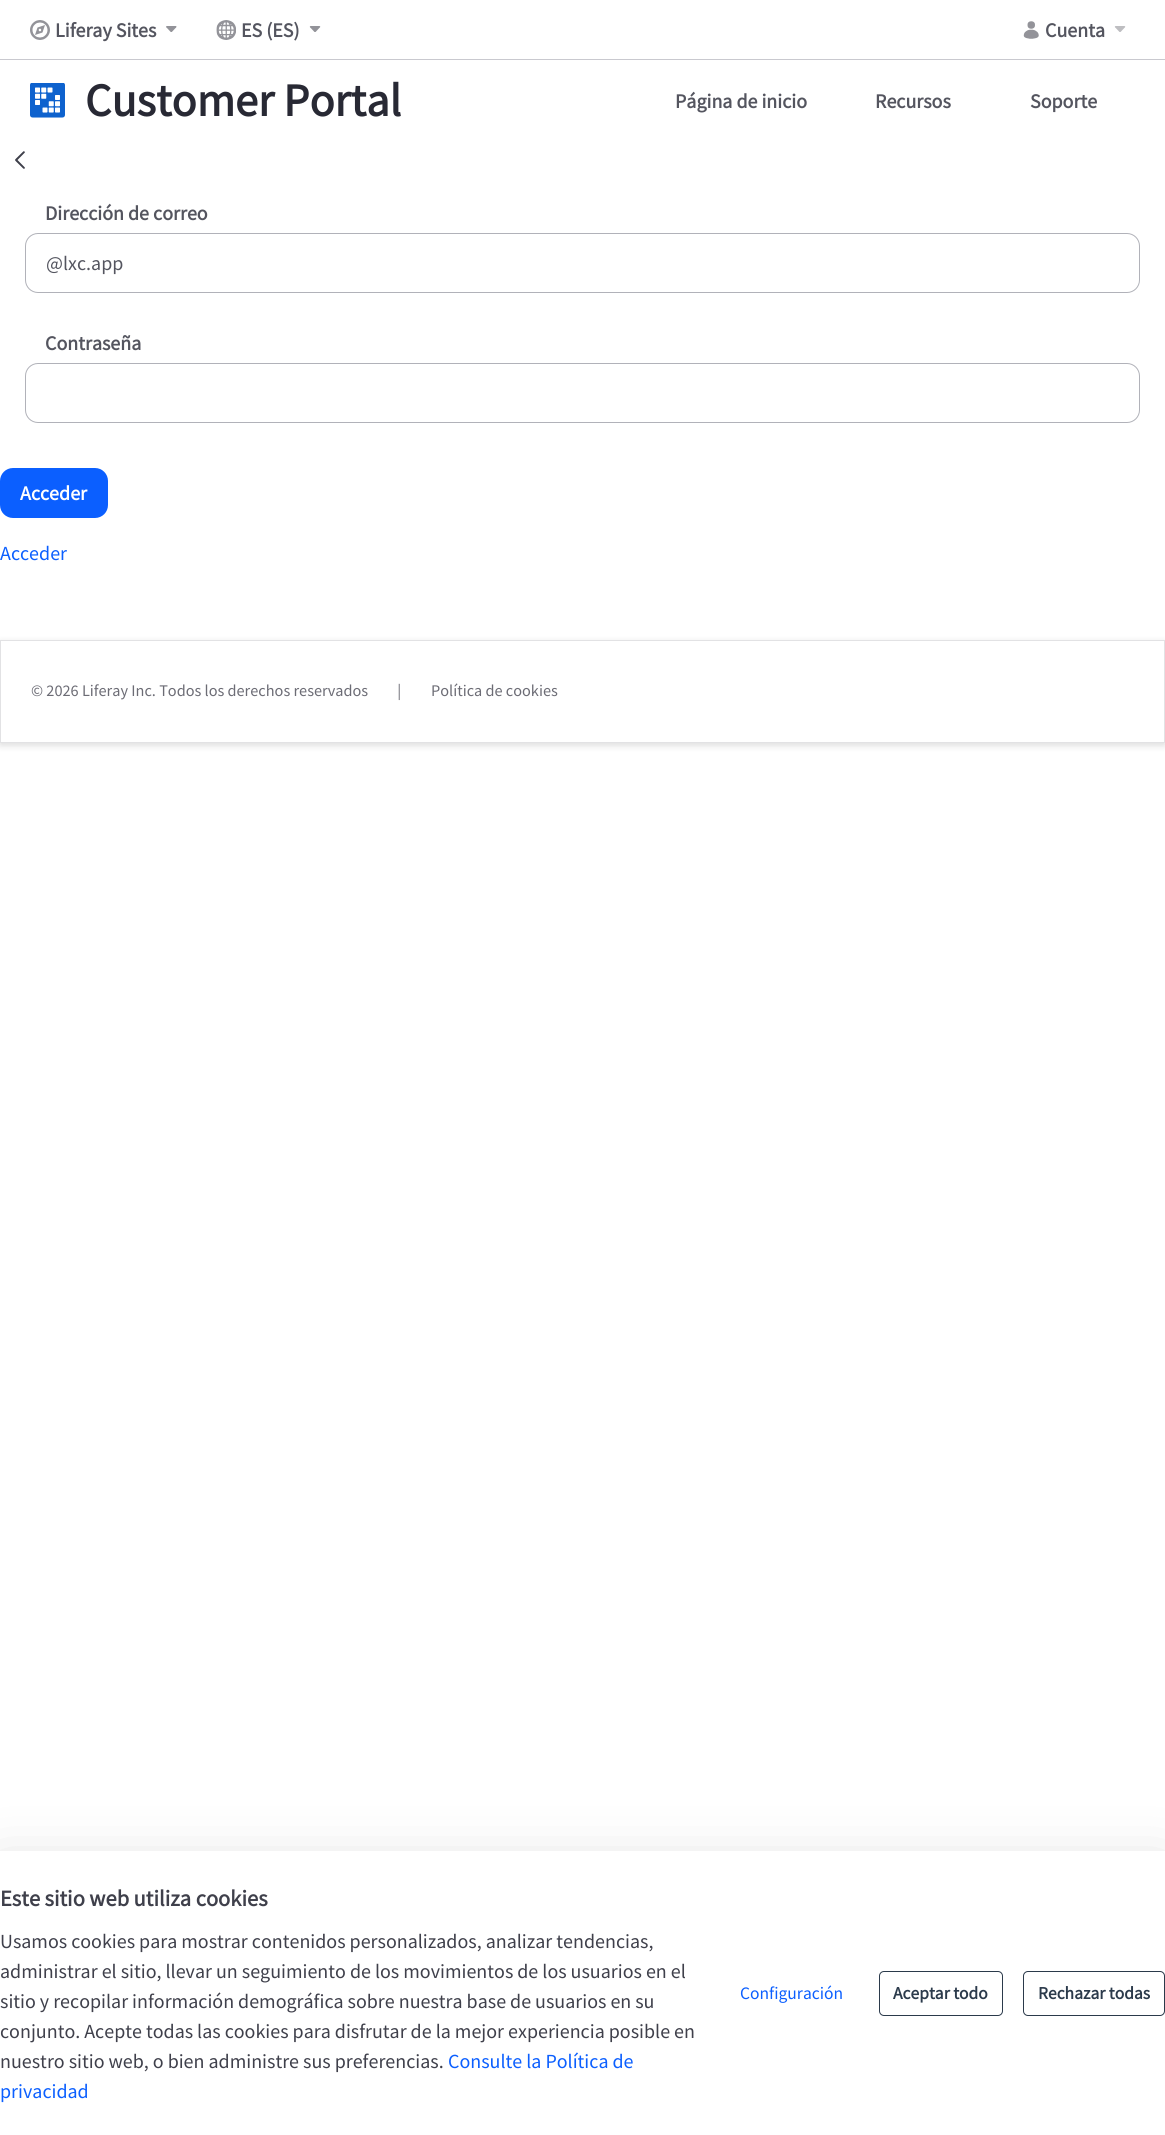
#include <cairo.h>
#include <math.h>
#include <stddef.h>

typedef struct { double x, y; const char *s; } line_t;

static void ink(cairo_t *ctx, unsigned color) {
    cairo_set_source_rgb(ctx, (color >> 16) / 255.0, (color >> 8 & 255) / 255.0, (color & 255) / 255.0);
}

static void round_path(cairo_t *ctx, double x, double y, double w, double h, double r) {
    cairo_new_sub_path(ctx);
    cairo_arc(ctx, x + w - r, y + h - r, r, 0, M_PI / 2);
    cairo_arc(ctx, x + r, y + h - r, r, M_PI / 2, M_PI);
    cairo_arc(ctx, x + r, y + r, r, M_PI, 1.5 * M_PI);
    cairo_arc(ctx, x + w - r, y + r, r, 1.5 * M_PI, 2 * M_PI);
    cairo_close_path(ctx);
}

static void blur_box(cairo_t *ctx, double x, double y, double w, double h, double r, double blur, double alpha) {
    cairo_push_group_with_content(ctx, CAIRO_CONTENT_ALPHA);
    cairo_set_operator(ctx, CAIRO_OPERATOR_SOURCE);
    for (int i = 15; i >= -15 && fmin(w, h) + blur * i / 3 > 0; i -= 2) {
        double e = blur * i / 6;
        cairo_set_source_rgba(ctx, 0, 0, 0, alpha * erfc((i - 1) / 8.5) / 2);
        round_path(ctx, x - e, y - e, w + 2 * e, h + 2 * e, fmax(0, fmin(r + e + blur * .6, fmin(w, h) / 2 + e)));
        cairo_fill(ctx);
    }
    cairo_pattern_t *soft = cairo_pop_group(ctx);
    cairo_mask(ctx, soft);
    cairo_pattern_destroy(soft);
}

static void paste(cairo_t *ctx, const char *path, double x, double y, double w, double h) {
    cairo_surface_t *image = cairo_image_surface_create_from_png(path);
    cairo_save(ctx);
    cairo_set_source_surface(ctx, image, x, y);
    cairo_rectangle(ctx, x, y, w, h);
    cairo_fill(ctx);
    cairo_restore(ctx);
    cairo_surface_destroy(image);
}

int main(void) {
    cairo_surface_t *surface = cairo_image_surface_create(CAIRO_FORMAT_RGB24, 1165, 2135);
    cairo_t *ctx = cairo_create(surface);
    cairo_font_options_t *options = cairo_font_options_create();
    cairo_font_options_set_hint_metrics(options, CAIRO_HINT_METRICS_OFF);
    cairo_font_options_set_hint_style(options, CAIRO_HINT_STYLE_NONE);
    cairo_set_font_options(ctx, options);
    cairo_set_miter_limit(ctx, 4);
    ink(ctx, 0xFFFFFF);
    cairo_paint(ctx);
    ink(ctx, 0xC9C9CF);
    cairo_rectangle(ctx, 0, 59, 1165, 1);
    cairo_fill(ctx);
    paste(ctx, "media/1.png", 30, 20, 20, 20);
    cairo_select_font_face(ctx, "Source Sans Pro", CAIRO_FONT_SLANT_NORMAL, CAIRO_FONT_WEIGHT_BOLD);
    cairo_set_font_size(ctx, 20);
    ink(ctx, 0x54555F);
    cairo_move_to(ctx, 55, 37);
    cairo_show_text(ctx, "Liferay Sites");
    paste(ctx, "media/2.png", 166, 26, 11, 6);
    paste(ctx, "media/3.png", 216, 20, 20, 20);
    cairo_move_to(ctx, 241, 37);
    cairo_show_text(ctx, "ES (ES)");
    paste(ctx, "media/4.png", 309, 26, 12, 6);
    paste(ctx, "media/5.png", 1023, 21, 16, 18);
    cairo_move_to(ctx, 1045, 37);
    cairo_show_text(ctx, "Cuenta");
    paste(ctx, "media/6.png", 1114, 26, 12, 6);
    paste(ctx, "media/7.png", 30, 83, 35, 35);
    cairo_set_font_size(ctx, 46.25);
    ink(ctx, 0x282934);
    cairo_move_to(ctx, 85, 116);
    cairo_show_text(ctx, "Customer Portal");
    cairo_set_font_size(ctx, 20);
    ink(ctx, 0x54555F);
    {
        static const line_t items[] = {
            {675, 108, "Página de inicio"},
            {875, 108, "Recursos"},
            {1030, 108, "Soporte"},
        };
        for (size_t i = 0; i < sizeof items / sizeof *items; i++) {
            cairo_move_to(ctx, items[i].x, items[i].y);
            cairo_show_text(ctx, items[i].s);
        }
    }
    paste(ctx, "media/8.png", 15, 151, 10, 18);
    cairo_move_to(ctx, 45, 220);
    cairo_show_text(ctx, "Dirección de correo");
    round_path(ctx, 25.5, 233.5, 1114, 59, 12.5);
    ink(ctx, 0xB1B2B9);
    cairo_set_line_width(ctx, 1);
    cairo_stroke(ctx);
    cairo_select_font_face(ctx, "Source Sans Pro", CAIRO_FONT_SLANT_NORMAL, CAIRO_FONT_WEIGHT_NORMAL);
    ink(ctx, 0x54555F);
    cairo_move_to(ctx, 46, 270);
    cairo_show_text(ctx, "@lxc.app");
    cairo_select_font_face(ctx, "Source Sans Pro", CAIRO_FONT_SLANT_NORMAL, CAIRO_FONT_WEIGHT_BOLD);
    cairo_move_to(ctx, 45, 350);
    cairo_show_text(ctx, "Contraseña");
    round_path(ctx, 25.5, 363.5, 1114, 59, 12.5);
    ink(ctx, 0xB1B2B9);
    cairo_stroke(ctx);
    ink(ctx, 0x0B5FFF);
    round_path(ctx, 0, 468, 108, 50, 13);
    cairo_fill(ctx);
    ink(ctx, 0xFFFFFF);
    cairo_move_to(ctx, 20, 500);
    cairo_show_text(ctx, "Acceder");
    cairo_select_font_face(ctx, "Source Sans Pro", CAIRO_FONT_SLANT_NORMAL, CAIRO_FONT_WEIGHT_NORMAL);
    ink(ctx, 0x0B5FFF);
    cairo_move_to(ctx, 0, 560);
    cairo_show_text(ctx, "Acceder");
    ink(ctx, 0x000000);
    blur_box(ctx, 0, 643, 1165, 102, 0, 4, 0.15);
    ink(ctx, 0xFFFFFF);
    cairo_rectangle(ctx, 0.5, 640.5, 1164, 102);
    cairo_fill_preserve(ctx);
    ink(ctx, 0xE2E2E4);
    cairo_stroke(ctx);
    cairo_set_font_size(ctx, 16.25);
    ink(ctx, 0x6C6C75);
    cairo_move_to(ctx, 31, 696);
    cairo_show_text(ctx, "© 2026 Liferay Inc. Todos los derechos reservados         |");
    cairo_move_to(ctx, 431, 696);
    cairo_show_text(ctx, "Política de cookies");
    ink(ctx, 0x000000);
    blur_box(ctx, 0, 1871, 1165, 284, 0, 30, 0.18);
    ink(ctx, 0xFFFFFF);
    cairo_rectangle(ctx, 0, 1851, 1165, 284);
    cairo_fill(ctx);
    cairo_select_font_face(ctx, "Source Sans Pro", CAIRO_FONT_SLANT_NORMAL, CAIRO_FONT_WEIGHT_BOLD);
    cairo_set_font_size(ctx, 22.5);
    ink(ctx, 0x3F404B);
    cairo_move_to(ctx, 0, 1906);
    cairo_show_text(ctx, "Este sitio web utiliza cookies");
    cairo_select_font_face(ctx, "Source Sans Pro", CAIRO_FONT_SLANT_NORMAL, CAIRO_FONT_WEIGHT_NORMAL);
    cairo_set_font_size(ctx, 20);
    {
        static const line_t items[] = {
            {0, 1948, "Usamos cookies para mostrar contenidos personalizados, analizar tendencias,"},
            {0, 1978, "administrar el sitio, llevar un seguimiento de los movimientos de los usuarios en el"},
            {0, 2008, "sitio y recopilar información demográfica sobre nuestra base de usuarios en su"},
            {0, 2038, "conjunto. Acepte todas las cookies para disfrutar de la mejor experiencia posible en"},
            {0, 2068, "nuestro sitio web, o bien administre sus preferencias."},
        };
        for (size_t i = 0; i < sizeof items / sizeof *items; i++) {
            cairo_move_to(ctx, items[i].x, items[i].y);
            cairo_show_text(ctx, items[i].s);
        }
    }
    ink(ctx, 0x0B5FFF);
    cairo_move_to(ctx, 448, 2068);
    cairo_show_text(ctx, "Consulte la Política de");
    cairo_move_to(ctx, 0, 2098);
    cairo_show_text(ctx, "privacidad");
    cairo_set_font_size(ctx, 17.5);
    cairo_move_to(ctx, 740, 1999);
    cairo_show_text(ctx, "Configuración");
    round_path(ctx, 879.5, 1971.5, 123, 44, 4.5);
    ink(ctx, 0x2B3A4B);
    cairo_stroke(ctx);
    cairo_select_font_face(ctx, "Source Sans Pro", CAIRO_FONT_SLANT_NORMAL, CAIRO_FONT_WEIGHT_BOLD);
    cairo_move_to(ctx, 893, 1999);
    cairo_show_text(ctx, "Aceptar todo");
    round_path(ctx, 1023.5, 1971.5, 141, 44, 4.5);
    cairo_stroke(ctx);
    cairo_move_to(ctx, 1038, 1999);
    cairo_show_text(ctx, "Rechazar todas");
    cairo_surface_write_to_png(surface, "image.png");
    cairo_font_options_destroy(options);
    cairo_destroy(ctx);
    cairo_surface_destroy(surface);
    return 0;
}
